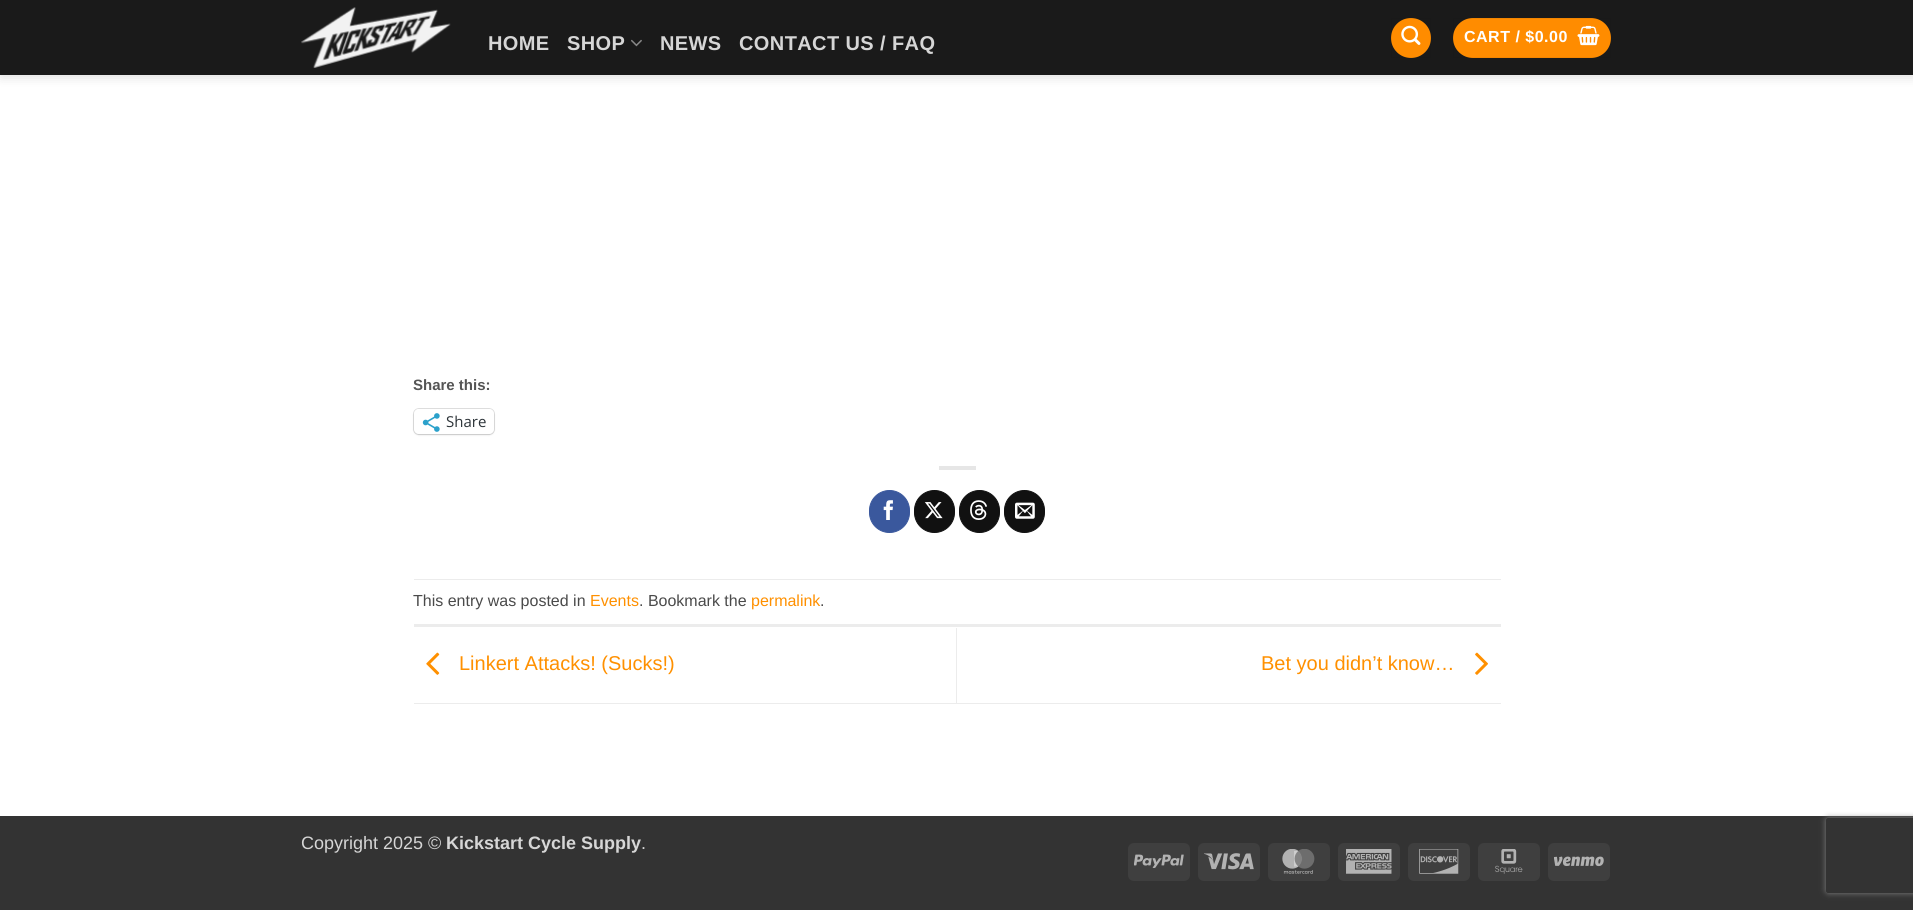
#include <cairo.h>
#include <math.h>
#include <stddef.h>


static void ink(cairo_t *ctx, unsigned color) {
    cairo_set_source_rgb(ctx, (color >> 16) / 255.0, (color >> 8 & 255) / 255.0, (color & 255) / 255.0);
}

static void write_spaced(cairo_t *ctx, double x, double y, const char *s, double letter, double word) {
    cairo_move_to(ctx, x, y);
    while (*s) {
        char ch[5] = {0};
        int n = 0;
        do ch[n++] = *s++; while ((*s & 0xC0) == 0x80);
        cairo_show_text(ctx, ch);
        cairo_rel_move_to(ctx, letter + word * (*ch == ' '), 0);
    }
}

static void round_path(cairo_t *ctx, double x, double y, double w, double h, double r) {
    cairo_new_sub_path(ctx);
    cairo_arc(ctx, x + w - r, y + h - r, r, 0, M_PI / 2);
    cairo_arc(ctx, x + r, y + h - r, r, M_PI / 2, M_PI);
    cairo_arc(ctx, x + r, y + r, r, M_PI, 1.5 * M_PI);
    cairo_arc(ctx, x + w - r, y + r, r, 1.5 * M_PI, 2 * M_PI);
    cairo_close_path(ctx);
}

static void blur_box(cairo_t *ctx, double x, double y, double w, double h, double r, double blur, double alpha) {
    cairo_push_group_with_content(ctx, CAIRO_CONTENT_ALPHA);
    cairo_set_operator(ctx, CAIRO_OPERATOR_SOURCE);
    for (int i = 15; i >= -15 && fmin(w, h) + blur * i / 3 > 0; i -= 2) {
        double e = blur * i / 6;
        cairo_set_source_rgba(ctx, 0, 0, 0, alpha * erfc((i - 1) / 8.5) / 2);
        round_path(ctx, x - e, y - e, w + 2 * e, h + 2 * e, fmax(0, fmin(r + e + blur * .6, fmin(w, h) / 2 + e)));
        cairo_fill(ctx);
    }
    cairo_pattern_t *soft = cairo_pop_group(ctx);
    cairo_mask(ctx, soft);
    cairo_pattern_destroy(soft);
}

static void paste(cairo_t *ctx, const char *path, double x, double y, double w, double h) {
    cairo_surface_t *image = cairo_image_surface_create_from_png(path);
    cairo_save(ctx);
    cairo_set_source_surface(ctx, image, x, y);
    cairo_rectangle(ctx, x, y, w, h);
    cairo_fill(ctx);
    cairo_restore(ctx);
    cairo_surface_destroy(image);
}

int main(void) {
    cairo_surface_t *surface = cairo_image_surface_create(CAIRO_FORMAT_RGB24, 1913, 910);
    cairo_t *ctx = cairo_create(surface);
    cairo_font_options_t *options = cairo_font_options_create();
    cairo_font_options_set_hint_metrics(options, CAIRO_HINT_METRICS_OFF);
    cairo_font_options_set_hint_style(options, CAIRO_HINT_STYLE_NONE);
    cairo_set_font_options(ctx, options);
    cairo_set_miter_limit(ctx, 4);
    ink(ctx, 0xFFFFFF);
    cairo_paint(ctx);
    ink(ctx, 0x000000);
    blur_box(ctx, 1, 1, 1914, 75, 0, 6, 0.15);
    ink(ctx, 0x1A1A1A);
    cairo_rectangle(ctx, 0, 0, 1913, 75);
    cairo_fill(ctx);
    paste(ctx, "media/1.png", 301, 7, 150, 61);
    cairo_select_font_face(ctx, "Liberation Sans", CAIRO_FONT_SLANT_NORMAL, CAIRO_FONT_WEIGHT_BOLD);
    cairo_set_font_size(ctx, 20);
    ink(ctx, 0xD6D6D6);
    write_spaced(ctx, 488, 50, "HOME", 0.4, 0);
    write_spaced(ctx, 567, 50, "SHOP", 0.4, 0);
    paste(ctx, "media/2.png", 631, 39, 11, 8);
    write_spaced(ctx, 660, 50, "NEWS", 0.4, 0);
    write_spaced(ctx, 739, 50, "CONTACT US / FAQ", 0.4, 0);
    ink(ctx, 0xFF8C00);
    cairo_new_path(ctx);
    cairo_arc(ctx, 1411, 38, 20, 0, 2 * M_PI);
    cairo_fill(ctx);
    cairo_rectangle(ctx, 1391.5, 18.5, 39, 39);
    cairo_set_source_rgba(ctx, 0, 0, 0, 0.05);
    cairo_set_line_width(ctx, 1);
    cairo_stroke(ctx);
    paste(ctx, "media/3.png", 1401, 25, 20, 20);
    ink(ctx, 0xFF8C00);
    round_path(ctx, 1453, 18, 158, 40, 20);
    cairo_fill(ctx);
    cairo_rectangle(ctx, 1453.5, 18.5, 157, 39);
    cairo_set_source_rgba(ctx, 0, 0, 0, 0.05);
    cairo_stroke(ctx);
    cairo_set_font_size(ctx, 16);
    ink(ctx, 0xFFFFFF);
    write_spaced(ctx, 1464, 42, "CART / $0.00", 0.5, 0);
    paste(ctx, "media/4.png", 1577, 25, 23, 21);
    cairo_set_font_size(ctx, 15);
    ink(ctx, 0x555555);
    cairo_move_to(ctx, 413, 390);
    cairo_show_text(ctx, "Share this:");
    round_path(ctx, 413.5, 408.5, 81, 26, 5.5);
    ink(ctx, 0xE0E0E0);
    cairo_stroke(ctx);
    ink(ctx, 0x000000);
    blur_box(ctx, 414, 410, 80, 25, 5, 1, 0.12);
    ink(ctx, 0xFFFFFF);
    round_path(ctx, 414, 409, 80, 25, 5);
    cairo_fill(ctx);
    paste(ctx, "media/5.png", 422, 413, 18, 19);
    cairo_select_font_face(ctx, "Open Sans", CAIRO_FONT_SLANT_NORMAL, CAIRO_FONT_WEIGHT_NORMAL);
    ink(ctx, 0x2C3338);
    cairo_move_to(ctx, 446, 427);
    cairo_show_text(ctx, "Share");
    ink(ctx, 0xE6E6E6);
    cairo_rectangle(ctx, 939, 466, 37, 4);
    cairo_fill(ctx);
    ink(ctx, 0x3A589D);
    round_path(ctx, 869.5, 490.5, 40, 42, 20);
    cairo_fill_preserve(ctx);
    cairo_stroke(ctx);
    paste(ctx, "media/6.png", 883, 500, 10, 20);
    ink(ctx, 0x111111);
    round_path(ctx, 914.5, 490.5, 40, 42, 20);
    cairo_fill_preserve(ctx);
    cairo_stroke(ctx);
    paste(ctx, "media/7.png", 924, 502, 19, 17);
    round_path(ctx, 959.5, 490.5, 40, 42, 20);
    cairo_fill_preserve(ctx);
    cairo_stroke(ctx);
    paste(ctx, "media/8.png", 970, 500, 17, 20);
    round_path(ctx, 1004.5, 490.5, 40, 42, 20);
    cairo_fill_preserve(ctx);
    cairo_stroke(ctx);
    paste(ctx, "media/9.png", 1015, 502, 20, 17);
    ink(ctx, 0xECECEC);
    cairo_rectangle(ctx, 414, 579, 1087, 1);
    cairo_fill(ctx);
    cairo_rectangle(ctx, 414, 624, 1087, 3);
    cairo_fill(ctx);
    cairo_select_font_face(ctx, "Liberation Sans", CAIRO_FONT_SLANT_NORMAL, CAIRO_FONT_WEIGHT_NORMAL);
    cairo_set_font_size(ctx, 16);
    ink(ctx, 0x4A4A4A);
    cairo_move_to(ctx, 413, 606);
    cairo_show_text(ctx, "This entry was posted in");
    ink(ctx, 0xFF9000);
    cairo_move_to(ctx, 590, 606);
    cairo_show_text(ctx, "Events");
    ink(ctx, 0x4A4A4A);
    cairo_move_to(ctx, 639, 606);
    cairo_show_text(ctx, ". Bookmark the");
    ink(ctx, 0xFF9000);
    cairo_move_to(ctx, 751, 606);
    cairo_show_text(ctx, "permalink");
    ink(ctx, 0x4A4A4A);
    cairo_move_to(ctx, 820, 606);
    cairo_show_text(ctx, ".");
    ink(ctx, 0xECECEC);
    cairo_rectangle(ctx, 414, 703, 1087, 1);
    cairo_fill(ctx);
    paste(ctx, "media/10.png", 426, 652, 14, 23);
    cairo_set_font_size(ctx, 20);
    ink(ctx, 0xFF9000);
    cairo_move_to(ctx, 459, 670);
    cairo_show_text(ctx, "Linkert Attacks! (Sucks!)");
    ink(ctx, 0xECECEC);
    cairo_rectangle(ctx, 956, 628, 1, 75);
    cairo_fill(ctx);
    ink(ctx, 0xFF9000);
    cairo_move_to(ctx, 1261, 670);
    cairo_show_text(ctx, "Bet you didn’t know…");
    paste(ctx, "media/11.png", 1475, 652, 13, 23);
    ink(ctx, 0x333333);
    cairo_rectangle(ctx, 0, 816, 1913, 94);
    cairo_fill(ctx);
    cairo_set_font_size(ctx, 18);
    ink(ctx, 0xD6D6D6);
    cairo_move_to(ctx, 301, 849);
    cairo_show_text(ctx, "Copyright 2025 ©");
    cairo_select_font_face(ctx, "Liberation Sans", CAIRO_FONT_SLANT_NORMAL, CAIRO_FONT_WEIGHT_BOLD);
    cairo_move_to(ctx, 446, 849);
    cairo_show_text(ctx, "Kickstart Cycle Supply");
    cairo_select_font_face(ctx, "Liberation Sans", CAIRO_FONT_SLANT_NORMAL, CAIRO_FONT_WEIGHT_NORMAL);
    cairo_move_to(ctx, 641, 849);
    cairo_show_text(ctx, ".");
    ink(ctx, 0x3F3F3F);
    round_path(ctx, 1128, 843, 62, 38, 6);
    cairo_fill(ctx);
    paste(ctx, "media/12.png", 1134, 854, 50, 14);
    round_path(ctx, 1198, 843, 62, 38, 6);
    cairo_fill(ctx);
    paste(ctx, "media/13.png", 1204, 853, 50, 17);
    round_path(ctx, 1268, 843, 62, 38, 6);
    cairo_fill(ctx);
    paste(ctx, "media/14.png", 1282, 849, 33, 25);
    round_path(ctx, 1338, 843, 62, 38, 6);
    cairo_fill(ctx);
    paste(ctx, "media/15.png", 1346, 849, 46, 25);
    round_path(ctx, 1408, 843, 62, 38, 6);
    cairo_fill(ctx);
    paste(ctx, "media/16.png", 1419, 849, 40, 25);
    round_path(ctx, 1478, 843, 62, 38, 6);
    cairo_fill(ctx);
    paste(ctx, "media/17.png", 1495, 849, 28, 25);
    round_path(ctx, 1548, 843, 62, 38, 6);
    cairo_fill(ctx);
    paste(ctx, "media/18.png", 1554, 856, 50, 11);
    cairo_save(ctx);
    cairo_set_fill_rule(ctx, CAIRO_FILL_RULE_EVEN_ODD);
    cairo_new_path(ctx);
    cairo_move_to(ctx, 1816, 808);
    cairo_line_to(ctx, 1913, 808);
    cairo_line_to(ctx, 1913, 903);
    cairo_line_to(ctx, 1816, 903);
    cairo_close_path(ctx);
    cairo_move_to(ctx, 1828.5, 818);
    cairo_line_to(ctx, 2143.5, 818);
    cairo_curve_to(ctx, 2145, 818, 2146, 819, 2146, 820.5);
    cairo_line_to(ctx, 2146, 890.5);
    cairo_curve_to(ctx, 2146, 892, 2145, 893, 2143.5, 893);
    cairo_line_to(ctx, 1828.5, 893);
    cairo_curve_to(ctx, 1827, 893, 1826, 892, 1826, 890.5);
    cairo_line_to(ctx, 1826, 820.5);
    cairo_curve_to(ctx, 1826, 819, 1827, 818, 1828.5, 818);
    cairo_close_path(ctx);
    cairo_clip(ctx);
    ink(ctx, 0x808080);
    blur_box(ctx, 1826, 818, 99, 75, 2.5, 3, 1);
    cairo_restore(ctx);
    cairo_surface_write_to_png(surface, "image.png");
    cairo_font_options_destroy(options);
    cairo_destroy(ctx);
    cairo_surface_destroy(surface);
    return 0;
}
